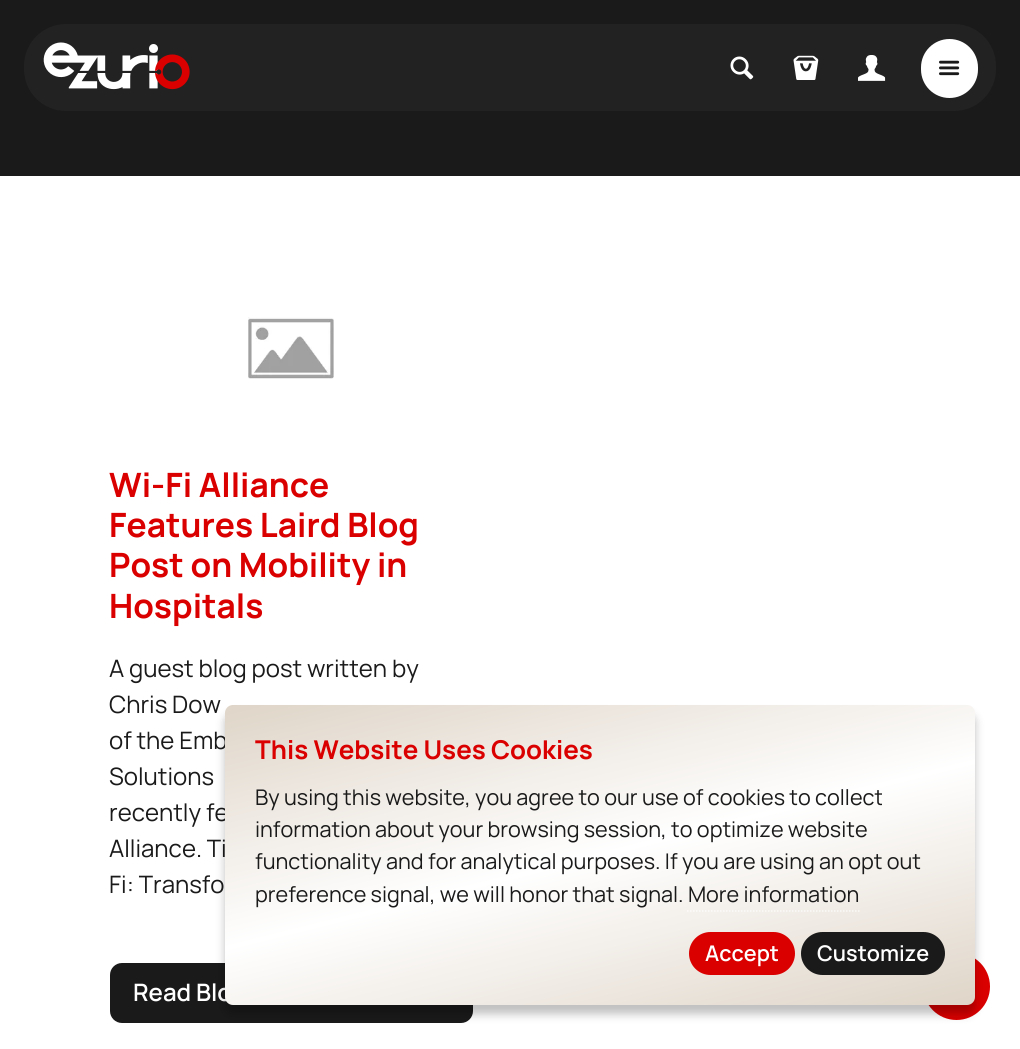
#include <cairo.h>
#include <math.h>
#include <stddef.h>

typedef struct { double x, y; const char *s; } line_t;

static void ink(cairo_t *ctx, unsigned color) {
    cairo_set_source_rgb(ctx, (color >> 16) / 255.0, (color >> 8 & 255) / 255.0, (color & 255) / 255.0);
}

static void round_path(cairo_t *ctx, double x, double y, double w, double h, double r) {
    cairo_new_sub_path(ctx);
    cairo_arc(ctx, x + w - r, y + h - r, r, 0, M_PI / 2);
    cairo_arc(ctx, x + r, y + h - r, r, M_PI / 2, M_PI);
    cairo_arc(ctx, x + r, y + r, r, M_PI, 1.5 * M_PI);
    cairo_arc(ctx, x + w - r, y + r, r, 1.5 * M_PI, 2 * M_PI);
    cairo_close_path(ctx);
}

static void blur_box(cairo_t *ctx, double x, double y, double w, double h, double r, double blur, double alpha) {
    cairo_push_group_with_content(ctx, CAIRO_CONTENT_ALPHA);
    cairo_set_operator(ctx, CAIRO_OPERATOR_SOURCE);
    for (int i = 15; i >= -15 && fmin(w, h) + blur * i / 3 > 0; i -= 2) {
        double e = blur * i / 6;
        cairo_set_source_rgba(ctx, 0, 0, 0, alpha * erfc((i - 1) / 8.5) / 2);
        round_path(ctx, x - e, y - e, w + 2 * e, h + 2 * e, fmax(0, fmin(r + e + blur * .6, fmin(w, h) / 2 + e)));
        cairo_fill(ctx);
    }
    cairo_pattern_t *soft = cairo_pop_group(ctx);
    cairo_mask(ctx, soft);
    cairo_pattern_destroy(soft);
}

static void paste(cairo_t *ctx, const char *path, double x, double y, double w, double h) {
    cairo_surface_t *image = cairo_image_surface_create_from_png(path);
    cairo_save(ctx);
    cairo_set_source_surface(ctx, image, x, y);
    cairo_rectangle(ctx, x, y, w, h);
    cairo_fill(ctx);
    cairo_restore(ctx);
    cairo_surface_destroy(image);
}

int main(void) {
    cairo_surface_t *surface = cairo_image_surface_create(CAIRO_FORMAT_RGB24, 1020, 1049);
    cairo_t *ctx = cairo_create(surface);
    cairo_font_options_t *options = cairo_font_options_create();
    cairo_font_options_set_hint_metrics(options, CAIRO_HINT_METRICS_OFF);
    cairo_font_options_set_hint_style(options, CAIRO_HINT_STYLE_NONE);
    cairo_set_font_options(ctx, options);
    cairo_set_miter_limit(ctx, 4);
    cairo_pattern_t *gradient;
    ink(ctx, 0xFFFFFF);
    cairo_paint(ctx);
    ink(ctx, 0x1A1A1A);
    cairo_rectangle(ctx, 0, 0, 1020, 176);
    cairo_fill(ctx);
    ink(ctx, 0x222222);
    round_path(ctx, 24, 24, 972, 87, 42);
    cairo_fill(ctx);
    paste(ctx, "media/1.png", 43, 42, 147, 48);
    paste(ctx, "media/2.png", 730, 56, 24, 24);
    paste(ctx, "media/3.png", 793, 55, 26, 25);
    paste(ctx, "media/4.png", 858, 55, 28, 26);
    ink(ctx, 0xFFFFFF);
    round_path(ctx, 921, 39, 57, 59, 28.5);
    cairo_fill(ctx);
    paste(ctx, "media/5.png", 939, 60, 21, 16);
    paste(ctx, "media/6.png", 248, 317, 86, 62);
    cairo_select_font_face(ctx, "Manrope", CAIRO_FONT_SLANT_NORMAL, CAIRO_FONT_WEIGHT_BOLD);
    cairo_set_font_size(ctx, 33.5);
    ink(ctx, 0xDA0000);
    {
        static const line_t items[] = {
            {109, 497, "Wi-Fi Alliance"},
            {109, 537, "Features Laird Blog"},
            {109, 577, "Post on Mobility in"},
            {109, 618, "Hospitals"},
        };
        for (size_t i = 0; i < sizeof items / sizeof *items; i++) {
            cairo_move_to(ctx, items[i].x, items[i].y);
            cairo_show_text(ctx, items[i].s);
        }
    }
    cairo_select_font_face(ctx, "Manrope", CAIRO_FONT_SLANT_NORMAL, CAIRO_FONT_WEIGHT_NORMAL);
    cairo_set_font_size(ctx, 24);
    ink(ctx, 0x1A1A1A);
    {
        static const line_t items[] = {
            {109, 677, "A guest blog post written by"},
            {109, 713, "Chris Dow"},
            {109, 749, "of the Emb"},
            {109, 785, "Solutions"},
            {109, 821, "recently fe"},
            {109, 857, "Alliance. Ti"},
            {109, 893, "Fi: Transfo"},
        };
        for (size_t i = 0; i < sizeof items / sizeof *items; i++) {
            cairo_move_to(ctx, items[i].x, items[i].y);
            cairo_show_text(ctx, items[i].s);
        }
    }
    round_path(ctx, 110, 963, 363, 60, 12);
    cairo_fill(ctx);
    cairo_select_font_face(ctx, "Manrope SemiBold", CAIRO_FONT_SLANT_NORMAL, CAIRO_FONT_WEIGHT_NORMAL);
    ink(ctx, 0xFFFFFF);
    cairo_move_to(ctx, 133, 1001);
    cairo_show_text(ctx, "Read Blo");
    ink(ctx, 0xDA0000);
    cairo_new_path(ctx);
    cairo_arc(ctx, 956.5, 986.5, 33.5, 0, 2 * M_PI);
    cairo_fill(ctx);
    ink(ctx, 0x000000);
    blur_box(ctx, 225, 714, 750, 300, 8, 4.5, 0.25);
    gradient = cairo_pattern_create_linear(657, 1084, 543, 626);
    cairo_pattern_add_color_stop_rgba(gradient, 0, 0.875, 0.835, 0.784, 1);
    cairo_pattern_add_color_stop_rgba(gradient, 0.5, 1, 1, 1, 1);
    cairo_pattern_add_color_stop_rgba(gradient, 1, 0.875, 0.835, 0.784, 1);
    cairo_set_source(ctx, gradient);
    cairo_pattern_destroy(gradient);
    round_path(ctx, 225, 705, 750, 300, 8);
    cairo_fill(ctx);
    cairo_select_font_face(ctx, "Manrope", CAIRO_FONT_SLANT_NORMAL, CAIRO_FONT_WEIGHT_BOLD);
    cairo_set_font_size(ctx, 25.9);
    ink(ctx, 0xDA0000);
    cairo_move_to(ctx, 255, 759);
    cairo_show_text(ctx, "This Website Uses Cookies");
    cairo_select_font_face(ctx, "Manrope", CAIRO_FONT_SLANT_NORMAL, CAIRO_FONT_WEIGHT_NORMAL);
    cairo_set_font_size(ctx, 21.6);
    ink(ctx, 0x1A1A1A);
    {
        static const line_t items[] = {
            {255, 805, "By using this website, you agree to our use of cookies to collect"},
            {255, 837, "information about your browsing session, to optimize website"},
            {255, 869, "functionality and for analytical purposes. If you are using an opt out"},
            {255, 902, "preference signal, we will honor that signal. More information"},
        };
        for (size_t i = 0; i < sizeof items / sizeof *items; i++) {
            cairo_move_to(ctx, items[i].x, items[i].y);
            cairo_show_text(ctx, items[i].s);
        }
    }
    cairo_new_path(ctx);
    cairo_move_to(ctx, 687, 911);
    cairo_line_to(ctx, 859.5, 911);
    cairo_set_source_rgba(ctx, 1, 1, 1, 0.75);
    cairo_set_line_width(ctx, 1.5);
    cairo_set_dash(ctx, (double[]){1.5, 1.5}, 2, 0);
    cairo_stroke(ctx);
    ink(ctx, 0xDA0000);
    round_path(ctx, 689, 932, 106, 43, 21.5);
    cairo_fill(ctx);
    cairo_select_font_face(ctx, "Manrope SemiBold", CAIRO_FONT_SLANT_NORMAL, CAIRO_FONT_WEIGHT_NORMAL);
    ink(ctx, 0xFFFFFF);
    cairo_move_to(ctx, 705, 961);
    cairo_show_text(ctx, "Accept");
    ink(ctx, 0x1A1A1A);
    round_path(ctx, 801, 932, 144, 43, 21.5);
    cairo_fill(ctx);
    ink(ctx, 0xFFFFFF);
    cairo_move_to(ctx, 817, 961);
    cairo_show_text(ctx, "Customize");
    cairo_surface_write_to_png(surface, "image.png");
    cairo_font_options_destroy(options);
    cairo_destroy(ctx);
    cairo_surface_destroy(surface);
    return 0;
}
